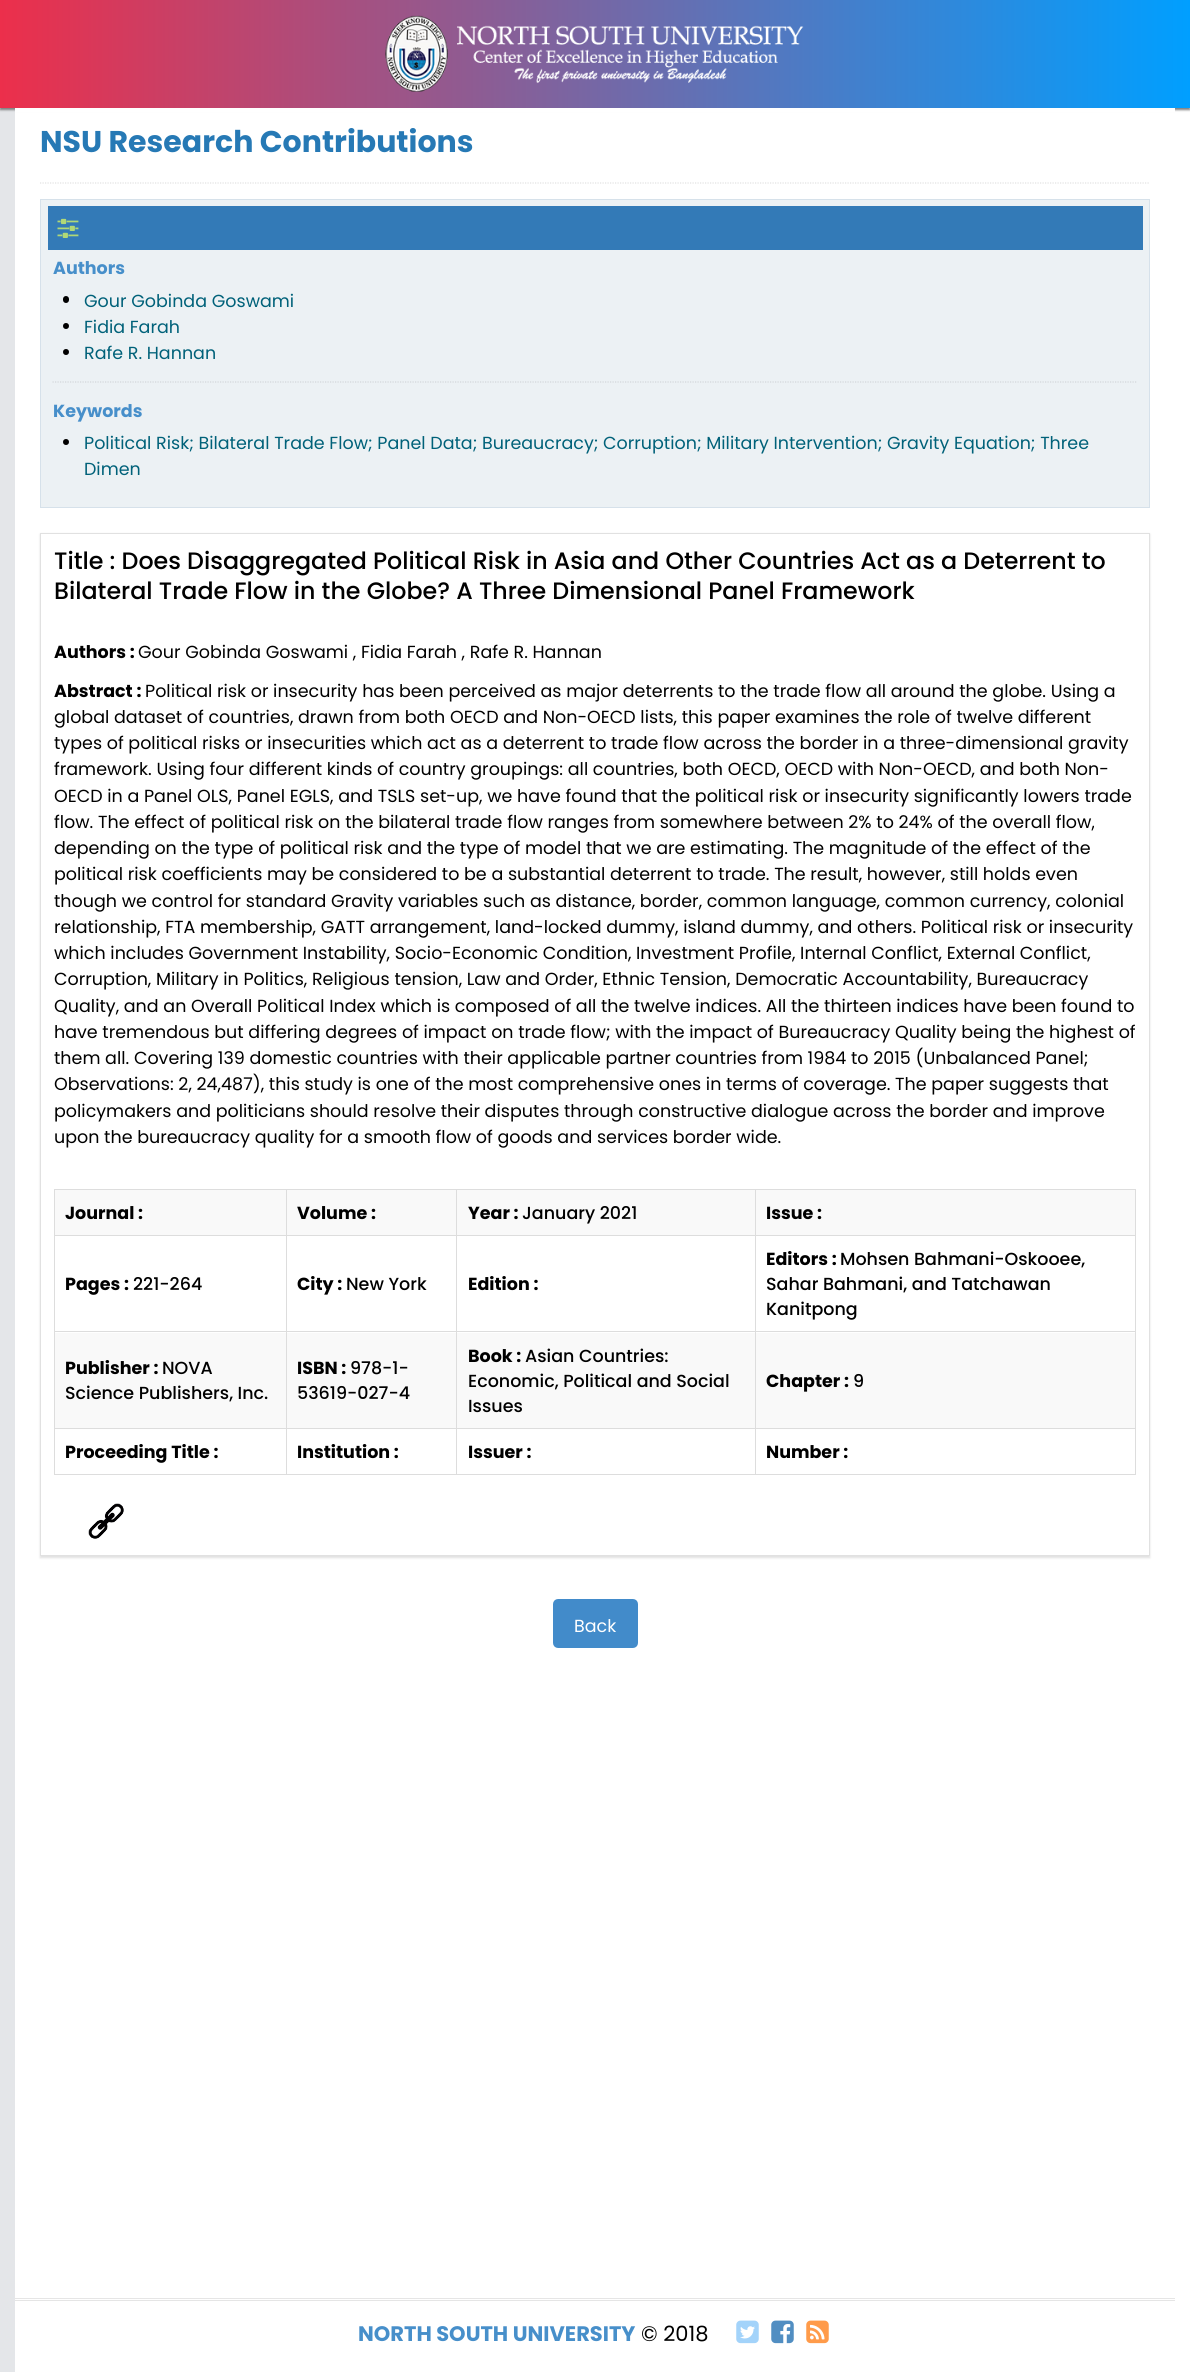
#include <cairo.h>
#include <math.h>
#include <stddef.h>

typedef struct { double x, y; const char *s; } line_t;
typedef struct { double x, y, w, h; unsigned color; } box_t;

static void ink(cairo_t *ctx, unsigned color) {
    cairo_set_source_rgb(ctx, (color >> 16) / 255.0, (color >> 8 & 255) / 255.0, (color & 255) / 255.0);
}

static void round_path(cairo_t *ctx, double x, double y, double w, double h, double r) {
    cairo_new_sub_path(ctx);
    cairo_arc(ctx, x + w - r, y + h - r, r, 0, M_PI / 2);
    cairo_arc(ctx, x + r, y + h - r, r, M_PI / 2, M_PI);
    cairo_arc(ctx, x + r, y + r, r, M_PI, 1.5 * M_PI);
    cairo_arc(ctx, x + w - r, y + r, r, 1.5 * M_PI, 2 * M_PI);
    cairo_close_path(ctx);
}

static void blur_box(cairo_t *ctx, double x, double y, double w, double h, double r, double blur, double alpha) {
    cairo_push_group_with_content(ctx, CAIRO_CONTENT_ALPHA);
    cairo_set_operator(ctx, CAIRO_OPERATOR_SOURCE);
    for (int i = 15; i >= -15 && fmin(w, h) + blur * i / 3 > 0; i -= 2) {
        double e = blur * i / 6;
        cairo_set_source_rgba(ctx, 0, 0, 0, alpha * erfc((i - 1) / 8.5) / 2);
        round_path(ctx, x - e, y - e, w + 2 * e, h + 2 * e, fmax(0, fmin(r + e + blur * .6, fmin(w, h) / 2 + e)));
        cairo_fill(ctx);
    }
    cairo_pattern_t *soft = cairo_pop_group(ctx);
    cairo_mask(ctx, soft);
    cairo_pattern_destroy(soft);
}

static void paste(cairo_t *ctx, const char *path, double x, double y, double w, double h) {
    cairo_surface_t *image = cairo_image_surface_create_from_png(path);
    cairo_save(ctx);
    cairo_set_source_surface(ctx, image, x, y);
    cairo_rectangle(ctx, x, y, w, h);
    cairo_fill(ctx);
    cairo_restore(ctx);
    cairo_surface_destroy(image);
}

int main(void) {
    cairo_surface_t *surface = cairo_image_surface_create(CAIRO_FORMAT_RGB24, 1190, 2372);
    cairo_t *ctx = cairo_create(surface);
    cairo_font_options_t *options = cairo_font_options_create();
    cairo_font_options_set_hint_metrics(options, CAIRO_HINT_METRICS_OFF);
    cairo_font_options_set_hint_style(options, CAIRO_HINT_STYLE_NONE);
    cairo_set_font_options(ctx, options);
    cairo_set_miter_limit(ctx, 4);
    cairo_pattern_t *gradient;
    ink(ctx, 0xE4E6E9);
    cairo_paint(ctx);
    ink(ctx, 0xFFFFFF);
    cairo_rectangle(ctx, 15, 108, 1175, 2264);
    cairo_fill(ctx);
    ink(ctx, 0x808080);
    blur_box(ctx, 0, 3, 1190, 107, 0, 1, 1);
    gradient = cairo_pattern_create_linear(0, 54, 1190, 54);
    cairo_pattern_add_color_stop_rgba(gradient, 0, 0.925, 0.184, 0.294, 1);
    cairo_pattern_add_color_stop_rgba(gradient, 1, 0, 0.624, 1, 1);
    cairo_set_source(ctx, gradient);
    cairo_pattern_destroy(gradient);
    cairo_rectangle(ctx, 0, 0, 1190, 108);
    cairo_fill(ctx);
    paste(ctx, "media/1.png", 385, 15, 419, 77);
    ink(ctx, 0xFFFFFF);
    cairo_rectangle(ctx, 15, 108, 1160, 4);
    cairo_fill(ctx);
    cairo_new_path(ctx);
    cairo_move_to(ctx, 40, 183);
    cairo_line_to(ctx, 1150, 183);
    ink(ctx, 0xE2E2E2);
    cairo_set_line_width(ctx, 1.2);
    cairo_set_dash(ctx, (double[]){1.25, 1.25}, 2, 0);
    cairo_stroke(ctx);
    cairo_select_font_face(ctx, "Poppins", CAIRO_FONT_SLANT_NORMAL, CAIRO_FONT_WEIGHT_BOLD);
    cairo_set_font_size(ctx, 30);
    ink(ctx, 0x2679B5);
    cairo_move_to(ctx, 40, 152);
    cairo_show_text(ctx, "NSU Research Contributions");
    ink(ctx, 0xECF1F4);
    cairo_rectangle(ctx, 40.5, 199.5, 1109, 308);
    cairo_fill_preserve(ctx);
    ink(ctx, 0xD6E1EA);
    cairo_set_line_width(ctx, 1);
    cairo_set_dash(ctx, NULL, 0, 0);
    cairo_stroke(ctx);
    ink(ctx, 0x337AB7);
    cairo_rectangle(ctx, 48, 206, 1095, 44);
    cairo_fill(ctx);
    paste(ctx, "media/2.png", 57, 218, 22, 20);
    cairo_set_font_size(ctx, 17.5);
    ink(ctx, 0x478FCA);
    cairo_move_to(ctx, 53, 274);
    cairo_show_text(ctx, "Authors");
    ink(ctx, 0x000000);
    round_path(ctx, 63, 296, 6, 7, 3);
    cairo_fill(ctx);
    cairo_select_font_face(ctx, "Poppins", CAIRO_FONT_SLANT_NORMAL, CAIRO_FONT_WEIGHT_NORMAL);
    ink(ctx, 0x006179);
    cairo_move_to(ctx, 84, 307);
    cairo_show_text(ctx, "Gour Gobinda Goswami");
    ink(ctx, 0x000000);
    cairo_new_path(ctx);
    cairo_arc(ctx, 66, 326, 3, 0, 2 * M_PI);
    cairo_fill(ctx);
    ink(ctx, 0x006179);
    cairo_move_to(ctx, 84, 333);
    cairo_show_text(ctx, "Fidia Farah");
    ink(ctx, 0x000000);
    cairo_new_path(ctx);
    cairo_arc(ctx, 66, 352, 3, 0, 2 * M_PI);
    cairo_fill(ctx);
    ink(ctx, 0x006179);
    cairo_move_to(ctx, 84, 359);
    cairo_show_text(ctx, "Rafe R. Hannan");
    cairo_new_path(ctx);
    cairo_move_to(ctx, 52.5, 382);
    cairo_line_to(ctx, 1137.5, 382);
    ink(ctx, 0xD2D6D9);
    cairo_set_line_width(ctx, 1.2);
    cairo_set_dash(ctx, (double[]){1.25, 1.25}, 2, 0);
    cairo_stroke(ctx);
    cairo_select_font_face(ctx, "Poppins", CAIRO_FONT_SLANT_NORMAL, CAIRO_FONT_WEIGHT_BOLD);
    ink(ctx, 0x478FCA);
    cairo_move_to(ctx, 53, 417);
    cairo_show_text(ctx, "Keywords");
    ink(ctx, 0x000000);
    cairo_new_path(ctx);
    cairo_arc(ctx, 66, 442, 3, 0, 2 * M_PI);
    cairo_fill(ctx);
    cairo_select_font_face(ctx, "Poppins", CAIRO_FONT_SLANT_NORMAL, CAIRO_FONT_WEIGHT_NORMAL);
    ink(ctx, 0x006179);
    cairo_move_to(ctx, 84, 449);
    cairo_show_text(ctx, "Political Risk; Bilateral Trade Flow; Panel Data; Bureaucracy; Corruption; Military Intervention; Gravity Equation; Three");
    cairo_move_to(ctx, 84, 475);
    cairo_show_text(ctx, "Dimen");
    cairo_save(ctx);
    cairo_set_fill_rule(ctx, CAIRO_FILL_RULE_EVEN_ODD);
    cairo_new_path(ctx);
    cairo_move_to(ctx, 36, 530);
    cairo_line_to(ctx, 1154, 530);
    cairo_line_to(ctx, 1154, 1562);
    cairo_line_to(ctx, 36, 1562);
    cairo_close_path(ctx);
    cairo_move_to(ctx, 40, 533);
    cairo_line_to(ctx, 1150, 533);
    cairo_line_to(ctx, 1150, 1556);
    cairo_line_to(ctx, 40, 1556);
    cairo_close_path(ctx);
    cairo_clip(ctx);
    ink(ctx, 0xE1E1E1);
    blur_box(ctx, 40, 534, 1110, 1024, 0, 1, 1);
    cairo_restore(ctx);
    cairo_rectangle(ctx, 40.5, 533.5, 1109, 1022);
    ink(ctx, 0xE1E1E1);
    cairo_set_line_width(ctx, 1);
    cairo_set_dash(ctx, NULL, 0, 0);
    cairo_stroke(ctx);
    cairo_select_font_face(ctx, "Poppins Medium", CAIRO_FONT_SLANT_NORMAL, CAIRO_FONT_WEIGHT_NORMAL);
    cairo_set_font_size(ctx, 23.75);
    ink(ctx, 0x000000);
    cairo_move_to(ctx, 54, 569);
    cairo_show_text(ctx, "Title : Does Disaggregated Political Risk in Asia and Other Countries Act as a Deterrent to");
    cairo_move_to(ctx, 54, 599);
    cairo_show_text(ctx, "Bilateral Trade Flow in the Globe? A Three Dimensional Panel Framework");
    cairo_select_font_face(ctx, "Poppins", CAIRO_FONT_SLANT_NORMAL, CAIRO_FONT_WEIGHT_BOLD);
    cairo_set_font_size(ctx, 17.5);
    cairo_move_to(ctx, 54, 658);
    cairo_show_text(ctx, "Authors :");
    cairo_select_font_face(ctx, "Poppins", CAIRO_FONT_SLANT_NORMAL, CAIRO_FONT_WEIGHT_NORMAL);
    cairo_move_to(ctx, 138, 658);
    cairo_show_text(ctx, "Gour Gobinda Goswami , Fidia Farah , Rafe R. Hannan");
    cairo_select_font_face(ctx, "Poppins", CAIRO_FONT_SLANT_NORMAL, CAIRO_FONT_WEIGHT_BOLD);
    cairo_move_to(ctx, 54, 697);
    cairo_show_text(ctx, "Abstract :");
    cairo_select_font_face(ctx, "Poppins", CAIRO_FONT_SLANT_NORMAL, CAIRO_FONT_WEIGHT_NORMAL);
    {
        static const line_t items[] = {
            {145, 697, "Political risk or insecurity has been perceived as major deterrents to the trade flow all around the globe. Using a"},
            {54, 723, "global dataset of countries, drawn from both OECD and Non-OECD lists, this paper examines the role of twelve different"},
            {54, 749, "types of political risks or insecurities which act as a deterrent to trade flow across the border in a three-dimensional gravity"},
            {54, 775, "framework. Using four different kinds of country groupings: all countries, both OECD, OECD with Non-OECD, and both Non-"},
            {54, 802, "OECD in a Panel OLS, Panel EGLS, and TSLS set-up, we have found that the political risk or insecurity significantly lowers trade"},
            {54, 828, "flow. The effect of political risk on the bilateral trade flow ranges from somewhere between 2% to 24% of the overall flow,"},
            {54, 854, "depending on the type of political risk and the type of model that we are estimating. The magnitude of the effect of the"},
            {54, 880, "political risk coefficients may be considered to be a substantial deterrent to trade. The result, however, still holds even"},
            {54, 907, "though we control for standard Gravity variables such as distance, border, common language, common currency, colonial"},
            {54, 933, "relationship, FTA membership, GATT arrangement, land-locked dummy, island dummy, and others. Political risk or insecurity"},
            {54, 959, "which includes Government Instability, Socio-Economic Condition, Investment Profile, Internal Conflict, External Conflict,"},
            {54, 985, "Corruption, Military in Politics, Religious tension, Law and Order, Ethnic Tension, Democratic Accountability, Bureaucracy"},
            {54, 1012, "Quality, and an Overall Political Index which is composed of all the twelve indices. All the thirteen indices have been found to"},
            {54, 1038, "have tremendous but differing degrees of impact on trade flow; with the impact of Bureaucracy Quality being the highest of"},
            {54, 1064, "them all. Covering 139 domestic countries with their applicable partner countries from 1984 to 2015 (Unbalanced Panel;"},
            {54, 1090, "Observations: 2, 24,487), this study is one of the most comprehensive ones in terms of coverage. The paper suggests that"},
            {54, 1117, "policymakers and politicians should resolve their disputes through constructive dialogue across the border and improve"},
            {54, 1143, "upon the bureaucracy quality for a smooth flow of goods and services border wide."},
        };
        for (size_t i = 0; i < sizeof items / sizeof *items; i++) {
            cairo_move_to(ctx, items[i].x, items[i].y);
            cairo_show_text(ctx, items[i].s);
        }
    }
    {
        static const box_t items[] = {
            {54, 1189, 1082, 1, 0xDDDDDD},
            {1135, 1189, 1, 286, 0xDDDDDD},
            {54, 1474, 1082, 1, 0xDDDDDD},
            {54, 1189, 1, 286, 0xDDDDDD},
            {55, 1190, 1080, 45, 0xF9F9F9},
        };
        for (size_t i = 0; i < sizeof items / sizeof *items; i++) {
            ink(ctx, items[i].color);
            cairo_rectangle(ctx, items[i].x, items[i].y, items[i].w, items[i].h);
            cairo_fill(ctx);
        }
    }
    cairo_select_font_face(ctx, "Poppins", CAIRO_FONT_SLANT_NORMAL, CAIRO_FONT_WEIGHT_BOLD);
    ink(ctx, 0x000000);
    cairo_move_to(ctx, 65, 1219);
    cairo_show_text(ctx, "Journal :");
    {
        static const box_t items[] = {
            {755, 1235, 381, 1, 0xDDDDDD},
            {755, 1331, 381, 1, 0xDDDDDD},
            {55, 1333, 1080, 95, 0xF9F9F9},
            {755, 1428, 381, 1, 0xDDDDDD},
            {755, 1428, 1, 47, 0xDDDDDD},
            {456, 1428, 300, 1, 0xDDDDDD},
            {755, 1331, 1, 98, 0xDDDDDD},
            {456, 1331, 300, 1, 0xDDDDDD},
            {755, 1235, 1, 98, 0xDDDDDD},
            {456, 1235, 300, 1, 0xDDDDDD},
            {456, 1428, 1, 47, 0xDDDDDD},
            {286, 1428, 172, 1, 0xDDDDDD},
            {456, 1331, 1, 98, 0xDDDDDD},
            {286, 1331, 172, 1, 0xDDDDDD},
            {456, 1235, 1, 98, 0xDDDDDD},
            {286, 1235, 172, 1, 0xDDDDDD},
            {286, 1428, 1, 47, 0xDDDDDD},
            {54, 1428, 234, 1, 0xDDDDDD},
            {286, 1331, 1, 98, 0xDDDDDD},
            {54, 1331, 234, 1, 0xDDDDDD},
            {286, 1235, 1, 98, 0xDDDDDD},
            {54, 1235, 234, 1, 0xDDDDDD},
            {286, 1189, 1, 47, 0xDDDDDD},
        };
        for (size_t i = 0; i < sizeof items / sizeof *items; i++) {
            ink(ctx, items[i].color);
            cairo_rectangle(ctx, items[i].x, items[i].y, items[i].w, items[i].h);
            cairo_fill(ctx);
        }
    }
    ink(ctx, 0x000000);
    cairo_move_to(ctx, 297, 1219);
    cairo_show_text(ctx, "Volume :");
    ink(ctx, 0xDDDDDD);
    cairo_rectangle(ctx, 456, 1189, 1, 47);
    cairo_fill(ctx);
    ink(ctx, 0x000000);
    cairo_move_to(ctx, 468, 1219);
    cairo_show_text(ctx, "Year :");
    cairo_select_font_face(ctx, "Poppins Medium", CAIRO_FONT_SLANT_NORMAL, CAIRO_FONT_WEIGHT_NORMAL);
    cairo_move_to(ctx, 522, 1219);
    cairo_show_text(ctx, "January 2021");
    ink(ctx, 0xDDDDDD);
    cairo_rectangle(ctx, 755, 1189, 1, 47);
    cairo_fill(ctx);
    cairo_select_font_face(ctx, "Poppins", CAIRO_FONT_SLANT_NORMAL, CAIRO_FONT_WEIGHT_BOLD);
    ink(ctx, 0x000000);
    cairo_move_to(ctx, 766, 1219);
    cairo_show_text(ctx, "Issue :");
    cairo_move_to(ctx, 65, 1290);
    cairo_show_text(ctx, "Pages :");
    cairo_select_font_face(ctx, "Poppins Medium", CAIRO_FONT_SLANT_NORMAL, CAIRO_FONT_WEIGHT_NORMAL);
    cairo_move_to(ctx, 133, 1290);
    cairo_show_text(ctx, "221-264");
    cairo_select_font_face(ctx, "Poppins", CAIRO_FONT_SLANT_NORMAL, CAIRO_FONT_WEIGHT_BOLD);
    cairo_move_to(ctx, 297, 1290);
    cairo_show_text(ctx, "City :");
    cairo_select_font_face(ctx, "Poppins Medium", CAIRO_FONT_SLANT_NORMAL, CAIRO_FONT_WEIGHT_NORMAL);
    cairo_move_to(ctx, 346, 1290);
    cairo_show_text(ctx, "New York");
    cairo_select_font_face(ctx, "Poppins", CAIRO_FONT_SLANT_NORMAL, CAIRO_FONT_WEIGHT_BOLD);
    cairo_move_to(ctx, 468, 1290);
    cairo_show_text(ctx, "Edition :");
    cairo_move_to(ctx, 766, 1265);
    cairo_show_text(ctx, "Editors :");
    cairo_select_font_face(ctx, "Poppins Medium", CAIRO_FONT_SLANT_NORMAL, CAIRO_FONT_WEIGHT_NORMAL);
    {
        static const line_t items[] = {
            {840, 1265, "Mohsen Bahmani-Oskooee,"},
            {766, 1290, "Sahar Bahmani, and Tatchawan"},
            {766, 1315, "Kanitpong"},
        };
        for (size_t i = 0; i < sizeof items / sizeof *items; i++) {
            cairo_move_to(ctx, items[i].x, items[i].y);
            cairo_show_text(ctx, items[i].s);
        }
    }
    cairo_select_font_face(ctx, "Poppins", CAIRO_FONT_SLANT_NORMAL, CAIRO_FONT_WEIGHT_BOLD);
    cairo_move_to(ctx, 65, 1374);
    cairo_show_text(ctx, "Publisher :");
    cairo_select_font_face(ctx, "Poppins Medium", CAIRO_FONT_SLANT_NORMAL, CAIRO_FONT_WEIGHT_NORMAL);
    cairo_move_to(ctx, 162, 1374);
    cairo_show_text(ctx, "NOVA");
    cairo_move_to(ctx, 65, 1399);
    cairo_show_text(ctx, "Science Publishers, Inc.");
    cairo_select_font_face(ctx, "Poppins", CAIRO_FONT_SLANT_NORMAL, CAIRO_FONT_WEIGHT_BOLD);
    cairo_move_to(ctx, 297, 1374);
    cairo_show_text(ctx, "ISBN :");
    cairo_select_font_face(ctx, "Poppins Medium", CAIRO_FONT_SLANT_NORMAL, CAIRO_FONT_WEIGHT_NORMAL);
    cairo_move_to(ctx, 350, 1374);
    cairo_show_text(ctx, "978-1-");
    cairo_move_to(ctx, 297, 1399);
    cairo_show_text(ctx, "53619-027-4");
    cairo_select_font_face(ctx, "Poppins", CAIRO_FONT_SLANT_NORMAL, CAIRO_FONT_WEIGHT_BOLD);
    cairo_move_to(ctx, 468, 1362);
    cairo_show_text(ctx, "Book :");
    cairo_select_font_face(ctx, "Poppins Medium", CAIRO_FONT_SLANT_NORMAL, CAIRO_FONT_WEIGHT_NORMAL);
    {
        static const line_t items[] = {
            {525, 1362, "Asian Countries:"},
            {468, 1387, "Economic, Political and Social"},
            {468, 1412, "Issues"},
        };
        for (size_t i = 0; i < sizeof items / sizeof *items; i++) {
            cairo_move_to(ctx, items[i].x, items[i].y);
            cairo_show_text(ctx, items[i].s);
        }
    }
    cairo_select_font_face(ctx, "Poppins", CAIRO_FONT_SLANT_NORMAL, CAIRO_FONT_WEIGHT_BOLD);
    cairo_move_to(ctx, 766, 1387);
    cairo_show_text(ctx, "Chapter :");
    cairo_select_font_face(ctx, "Poppins Medium", CAIRO_FONT_SLANT_NORMAL, CAIRO_FONT_WEIGHT_NORMAL);
    cairo_move_to(ctx, 853, 1387);
    cairo_show_text(ctx, "9");
    cairo_select_font_face(ctx, "Poppins", CAIRO_FONT_SLANT_NORMAL, CAIRO_FONT_WEIGHT_BOLD);
    {
        static const line_t items[] = {
            {65, 1458, "Proceeding Title :"},
            {297, 1458, "Institution :"},
            {468, 1458, "Issuer :"},
            {766, 1458, "Number :"},
        };
        for (size_t i = 0; i < sizeof items / sizeof *items; i++) {
            cairo_move_to(ctx, items[i].x, items[i].y);
            cairo_show_text(ctx, items[i].s);
        }
    }
    paste(ctx, "media/3.png", 88, 1503, 36, 36);
    ink(ctx, 0x428BCA);
    cairo_new_path(ctx);
    cairo_move_to(ctx, 559, 1605);
    cairo_line_to(ctx, 631, 1605);
    cairo_line_to(ctx, 631, 1645);
    cairo_line_to(ctx, 559, 1645);
    cairo_line_to(ctx, 559, 1642);
    cairo_close_path(ctx);
    cairo_fill(ctx);
    round_path(ctx, 554.5, 1600.5, 82, 46, 3.5);
    cairo_set_line_width(ctx, 3);
    cairo_stroke(ctx);
    {
        static const box_t items[] = {
            {555, 1602, 80, 3, 0x428BCA},
            {631, 1601, 4, 44, 0x428BCA},
            {556, 1601, 3, 44, 0x428BCA},
        };
        for (size_t i = 0; i < sizeof items / sizeof *items; i++) {
            ink(ctx, items[i].color);
            cairo_rectangle(ctx, items[i].x, items[i].y, items[i].w, items[i].h);
            cairo_fill(ctx);
        }
    }
    cairo_select_font_face(ctx, "Poppins", CAIRO_FONT_SLANT_NORMAL, CAIRO_FONT_WEIGHT_NORMAL);
    ink(ctx, 0xFFFFFF);
    cairo_move_to(ctx, 574, 1632);
    cairo_show_text(ctx, "Back");
    ink(ctx, 0xE5E5E5);
    cairo_rectangle(ctx, 15, 2298, 1160, 1);
    cairo_fill(ctx);
    cairo_rectangle(ctx, 15, 2300, 1160, 1);
    cairo_fill(ctx);
    cairo_select_font_face(ctx, "Poppins", CAIRO_FONT_SLANT_NORMAL, CAIRO_FONT_WEIGHT_BOLD);
    cairo_set_font_size(ctx, 21);
    ink(ctx, 0x478FCA);
    cairo_move_to(ctx, 358, 2341);
    cairo_show_text(ctx, "NORTH SOUTH UNIVERSITY");
    cairo_select_font_face(ctx, "Poppins", CAIRO_FONT_SLANT_NORMAL, CAIRO_FONT_WEIGHT_NORMAL);
    ink(ctx, 0x000000);
    cairo_move_to(ctx, 641, 2341);
    cairo_show_text(ctx, "© 2018");
    paste(ctx, "media/4.png", 736, 2320, 23, 24);
    paste(ctx, "media/5.png", 771, 2320, 23, 24);
    paste(ctx, "media/6.png", 806, 2320, 23, 24);
    cairo_surface_write_to_png(surface, "image.png");
    cairo_font_options_destroy(options);
    cairo_destroy(ctx);
    cairo_surface_destroy(surface);
    return 0;
}
